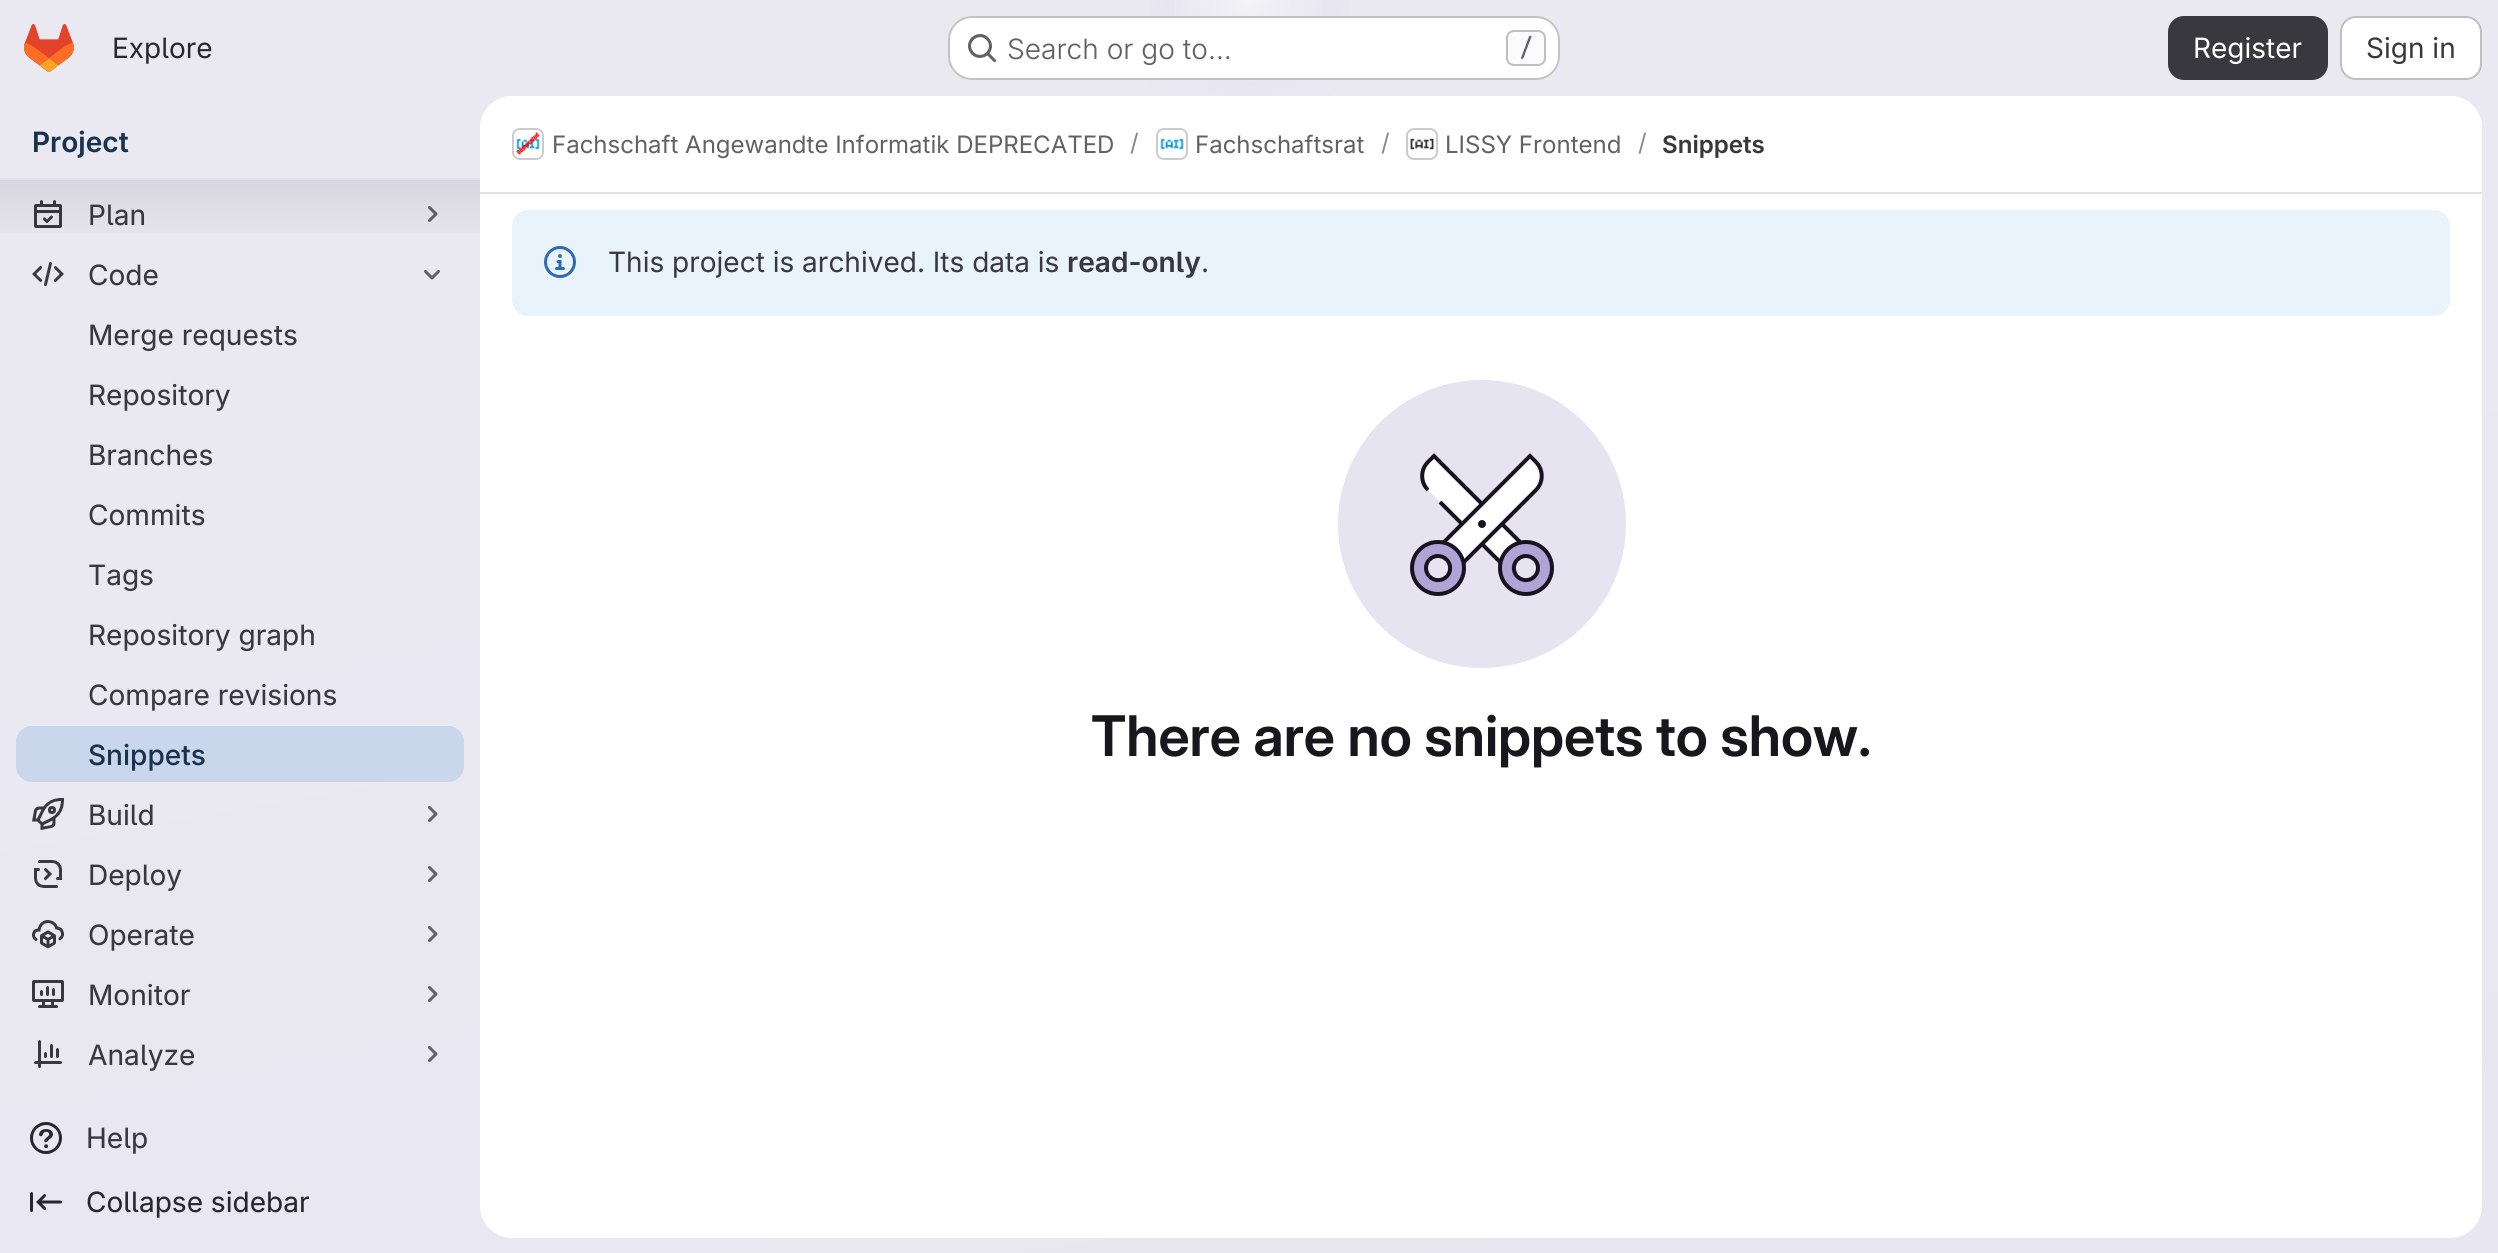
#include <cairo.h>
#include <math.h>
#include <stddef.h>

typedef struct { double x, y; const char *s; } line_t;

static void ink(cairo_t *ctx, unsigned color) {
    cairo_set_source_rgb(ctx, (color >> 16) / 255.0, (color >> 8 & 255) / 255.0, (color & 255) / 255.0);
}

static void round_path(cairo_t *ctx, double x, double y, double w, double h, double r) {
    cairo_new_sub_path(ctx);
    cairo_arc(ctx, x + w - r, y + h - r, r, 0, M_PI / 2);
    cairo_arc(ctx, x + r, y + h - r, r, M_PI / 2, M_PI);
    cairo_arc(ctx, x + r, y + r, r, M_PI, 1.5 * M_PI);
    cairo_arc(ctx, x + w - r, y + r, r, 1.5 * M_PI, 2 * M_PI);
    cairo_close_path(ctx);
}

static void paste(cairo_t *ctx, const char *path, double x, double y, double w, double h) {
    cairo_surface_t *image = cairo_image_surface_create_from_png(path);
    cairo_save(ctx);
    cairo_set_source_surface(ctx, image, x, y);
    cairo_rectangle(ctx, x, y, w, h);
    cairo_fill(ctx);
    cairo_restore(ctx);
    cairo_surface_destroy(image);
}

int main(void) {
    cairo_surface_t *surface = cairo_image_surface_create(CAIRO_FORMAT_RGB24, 2498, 1253);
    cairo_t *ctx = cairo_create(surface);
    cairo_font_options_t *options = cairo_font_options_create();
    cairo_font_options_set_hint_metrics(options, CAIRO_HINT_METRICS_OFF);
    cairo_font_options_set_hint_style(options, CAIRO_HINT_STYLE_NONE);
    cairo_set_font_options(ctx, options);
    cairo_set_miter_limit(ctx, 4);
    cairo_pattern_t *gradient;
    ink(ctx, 0xFFFFFF);
    cairo_paint(ctx);
    gradient = cairo_pattern_create_linear(1394, 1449, 1104, -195);
    cairo_pattern_add_color_stop_rgba(gradient, 0, 0.91, 0.902, 0.941, 1);
    cairo_pattern_add_color_stop_rgba(gradient, 0.7, 0.918, 0.914, 0.949, 1);
    cairo_set_source(ctx, gradient);
    cairo_pattern_destroy(gradient);
    cairo_rectangle(ctx, 0, 0, 2498, 1253);
    cairo_fill(ctx);
    gradient = cairo_pattern_create_radial(0, 0, 0, 0, 0, 1);
    cairo_pattern_set_matrix(gradient, &(cairo_matrix_t){1.0 / 1249, 0, 0, 1.0 / 1254, -1.0 * 1249 / 1249, -1.0 * 0 / 1254});
    cairo_pattern_add_color_stop_rgba(gradient, 0, 0.894, 0.886, 0.929, 1);
    cairo_pattern_add_color_stop_rgba(gradient, 0.11, 0.894, 0.886, 0.929, 0);
    cairo_set_source(ctx, gradient);
    cairo_pattern_destroy(gradient);
    cairo_rectangle(ctx, 1149, 0, 200, 96);
    cairo_fill(ctx);
    gradient = cairo_pattern_create_radial(0, 0, 0, 0, 0, 1);
    cairo_pattern_set_matrix(gradient, &(cairo_matrix_t){1.0 / 1249, 0, 0, 1.0 / 1254, -1.0 * 1249 / 1249, -1.0 * 0 / 1254});
    cairo_pattern_add_color_stop_rgba(gradient, 0, 0.894, 0.886, 0.925, 1);
    cairo_pattern_add_color_stop_rgba(gradient, 0.08, 0.894, 0.886, 0.925, 0);
    cairo_set_source(ctx, gradient);
    cairo_pattern_destroy(gradient);
    cairo_rectangle(ctx, 1224, 6, 50, 33);
    cairo_fill(ctx);
    gradient = cairo_pattern_create_radial(1249, 0, 0, 1249, 0, 1770);
    cairo_pattern_add_color_stop_rgba(gradient, 0, 1, 1, 1, 0.6);
    cairo_pattern_add_color_stop_rgba(gradient, 0.05, 1, 1, 1, 0);
    cairo_set_source(ctx, gradient);
    cairo_pattern_destroy(gradient);
    cairo_rectangle(ctx, 1175, 0, 148, 74);
    cairo_fill(ctx);
    paste(ctx, "media/1.png", 24, 24, 50, 48);
    cairo_select_font_face(ctx, "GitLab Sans", CAIRO_FONT_SLANT_NORMAL, CAIRO_FONT_WEIGHT_NORMAL);
    cairo_set_font_size(ctx, 28);
    ink(ctx, 0x28272D);
    cairo_move_to(ctx, 112, 58);
    cairo_show_text(ctx, "Explore");
    ink(ctx, 0xFFFFFF);
    round_path(ctx, 948, 16, 612, 64, 24);
    cairo_fill(ctx);
    round_path(ctx, 949, 17, 610, 62, 23);
    cairo_set_source_rgba(ctx, 0.02, 0.02, 0.024, 0.24);
    cairo_stroke(ctx);
    paste(ctx, "media/2.png", 968, 34, 29, 29);
    cairo_select_font_face(ctx, "GitLab Sans Light", CAIRO_FONT_SLANT_NORMAL, CAIRO_FONT_WEIGHT_NORMAL);
    ink(ctx, 0x626168);
    cairo_move_to(ctx, 1007, 59);
    cairo_show_text(ctx, "Search or go to…");
    ink(ctx, 0xFBFAFD);
    round_path(ctx, 1507, 31, 38, 34, 7);
    cairo_fill_preserve(ctx);
    ink(ctx, 0xBFBFC3);
    cairo_stroke(ctx);
    cairo_select_font_face(ctx, "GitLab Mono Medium", CAIRO_FONT_SLANT_NORMAL, CAIRO_FONT_WEIGHT_NORMAL);
    cairo_set_font_size(ctx, 24);
    ink(ctx, 0x626168);
    cairo_move_to(ctx, 1519, 56);
    cairo_show_text(ctx, "/");
    ink(ctx, 0x3A383F);
    round_path(ctx, 2169, 17, 158, 62, 15);
    cairo_fill_preserve(ctx);
    cairo_stroke(ctx);
    cairo_select_font_face(ctx, "GitLab Sans", CAIRO_FONT_SLANT_NORMAL, CAIRO_FONT_WEIGHT_NORMAL);
    cairo_set_font_size(ctx, 28);
    ink(ctx, 0xFFFFFF);
    cairo_move_to(ctx, 2193, 58);
    cairo_show_text(ctx, "Register");
    round_path(ctx, 2341, 17, 140, 62, 15);
    cairo_fill_preserve(ctx);
    ink(ctx, 0xBFBFC3);
    cairo_stroke(ctx);
    ink(ctx, 0x3A383F);
    cairo_move_to(ctx, 2366, 58);
    cairo_show_text(ctx, "Sign in");
    cairo_select_font_face(ctx, "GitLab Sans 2 SemiBold", CAIRO_FONT_SLANT_NORMAL, CAIRO_FONT_WEIGHT_NORMAL);
    ink(ctx, 0x18334E);
    cairo_move_to(ctx, 32, 152);
    cairo_show_text(ctx, "Project");
    ink(ctx, 0xE1DFEC);
    cairo_rectangle(ctx, 0, 178, 480, 2);
    cairo_fill(ctx);
    paste(ctx, "media/3.png", 34, 200, 28, 28);
    cairo_new_path(ctx);
    cairo_move_to(ctx, 429.5, 207.5);
    cairo_line_to(ctx, 436, 214);
    cairo_line_to(ctx, 429.5, 220.5);
    ink(ctx, 0x626168);
    cairo_set_line_width(ctx, 3);
    cairo_set_line_cap(ctx, CAIRO_LINE_CAP_ROUND);
    cairo_set_line_join(ctx, CAIRO_LINE_JOIN_ROUND);
    cairo_stroke(ctx);
    gradient = cairo_pattern_create_linear(240, 180, 240, 252);
    cairo_pattern_add_color_stop_rgba(gradient, 0, 0.02, 0.02, 0.024, 0.08);
    cairo_pattern_add_color_stop_rgba(gradient, 1, 0.02, 0.02, 0.024, 0);
    cairo_set_source(ctx, gradient);
    cairo_pattern_destroy(gradient);
    cairo_rectangle(ctx, 0, 180, 480, 53);
    cairo_fill(ctx);
    cairo_select_font_face(ctx, "GitLab Sans 2", CAIRO_FONT_SLANT_NORMAL, CAIRO_FONT_WEIGHT_NORMAL);
    ink(ctx, 0x3A383F);
    cairo_move_to(ctx, 88, 225);
    cairo_show_text(ctx, "Plan");
    paste(ctx, "media/4.png", 32, 262, 32, 24);
    cairo_move_to(ctx, 88, 285);
    cairo_show_text(ctx, "Code");
    cairo_new_path(ctx);
    cairo_move_to(ctx, 438.5, 271.5);
    cairo_line_to(ctx, 432, 278);
    cairo_line_to(ctx, 425.5, 271.5);
    ink(ctx, 0x626168);
    cairo_stroke(ctx);
    ink(ctx, 0x3A383F);
    {
        static const line_t items[] = {
            {88, 345, "Merge requests"},
            {88, 405, "Repository"},
            {88, 465, "Branches"},
            {88, 525, "Commits"},
            {88, 585, "Tags"},
            {88, 645, "Repository graph"},
            {88, 705, "Compare revisions"},
        };
        for (size_t i = 0; i < sizeof items / sizeof *items; i++) {
            cairo_move_to(ctx, items[i].x, items[i].y);
            cairo_show_text(ctx, items[i].s);
        }
    }
    ink(ctx, 0xC9D6EB);
    round_path(ctx, 16, 726, 448, 56, 16);
    cairo_fill(ctx);
    cairo_select_font_face(ctx, "GitLab Sans Medium", CAIRO_FONT_SLANT_NORMAL, CAIRO_FONT_WEIGHT_NORMAL);
    ink(ctx, 0x18334E);
    cairo_move_to(ctx, 88, 765);
    cairo_show_text(ctx, "Snippets");
    paste(ctx, "media/5.png", 32, 798, 32, 32);
    cairo_select_font_face(ctx, "GitLab Sans 2", CAIRO_FONT_SLANT_NORMAL, CAIRO_FONT_WEIGHT_NORMAL);
    ink(ctx, 0x3A383F);
    cairo_move_to(ctx, 88, 825);
    cairo_show_text(ctx, "Build");
    cairo_new_path(ctx);
    cairo_move_to(ctx, 429.5, 807.5);
    cairo_line_to(ctx, 436, 814);
    cairo_line_to(ctx, 429.5, 820.5);
    ink(ctx, 0x626168);
    cairo_stroke(ctx);
    paste(ctx, "media/6.png", 34, 860, 28, 28);
    ink(ctx, 0x3A383F);
    cairo_move_to(ctx, 88, 885);
    cairo_show_text(ctx, "Deploy");
    cairo_new_path(ctx);
    cairo_move_to(ctx, 429.5, 867.5);
    cairo_line_to(ctx, 436, 874);
    cairo_line_to(ctx, 429.5, 880.5);
    ink(ctx, 0x626168);
    cairo_stroke(ctx);
    paste(ctx, "media/7.png", 32, 920, 32, 29);
    ink(ctx, 0x3A383F);
    cairo_move_to(ctx, 88, 945);
    cairo_show_text(ctx, "Operate");
    cairo_new_path(ctx);
    cairo_move_to(ctx, 429.5, 927.5);
    cairo_line_to(ctx, 436, 934);
    cairo_line_to(ctx, 429.5, 940.5);
    ink(ctx, 0x626168);
    cairo_stroke(ctx);
    paste(ctx, "media/8.png", 32, 980, 32, 28);
    ink(ctx, 0x3A383F);
    cairo_move_to(ctx, 88, 1005);
    cairo_show_text(ctx, "Monitor");
    cairo_new_path(ctx);
    cairo_move_to(ctx, 429.5, 987.5);
    cairo_line_to(ctx, 436, 994);
    cairo_line_to(ctx, 429.5, 1000.5);
    ink(ctx, 0x626168);
    cairo_stroke(ctx);
    paste(ctx, "media/9.png", 34, 1040, 28, 28);
    ink(ctx, 0x3A383F);
    cairo_move_to(ctx, 88, 1065);
    cairo_show_text(ctx, "Analyze");
    cairo_new_path(ctx);
    cairo_move_to(ctx, 429.5, 1047.5);
    cairo_line_to(ctx, 436, 1054);
    cairo_line_to(ctx, 429.5, 1060.5);
    ink(ctx, 0x626168);
    cairo_stroke(ctx);
    paste(ctx, "media/10.png", 30, 1122, 32, 32);
    ink(ctx, 0x3A383F);
    cairo_move_to(ctx, 86, 1148);
    cairo_show_text(ctx, "Help");
    paste(ctx, "media/11.png", 30, 1192, 32, 20);
    ink(ctx, 0x28272D);
    cairo_move_to(ctx, 86, 1212);
    cairo_show_text(ctx, "Collapse sidebar");
    ink(ctx, 0xFFFFFF);
    round_path(ctx, 480, 96, 2002, 1142, 32);
    cairo_fill(ctx);
    cairo_new_path(ctx);
    cairo_move_to(ctx, 512, 96);
    cairo_line_to(ctx, 2450, 96);
    cairo_curve_to(ctx, 2467.5, 96, 2482, 110.5, 2482, 128);
    cairo_line_to(ctx, 2482, 194);
    cairo_line_to(ctx, 480, 194);
    cairo_line_to(ctx, 480, 128);
    cairo_curve_to(ctx, 480, 110.5, 494.5, 96, 512, 96);
    cairo_close_path(ctx);
    cairo_fill(ctx);
    ink(ctx, 0xE1DFEC);
    cairo_rectangle(ctx, 480, 192, 2002, 2);
    cairo_fill(ctx);
    round_path(ctx, 513, 129, 30, 30, 7);
    ink(ctx, 0xDCDCDE);
    cairo_set_line_width(ctx, 2);
    cairo_set_line_cap(ctx, CAIRO_LINE_CAP_BUTT);
    cairo_set_line_join(ctx, CAIRO_LINE_JOIN_MITER);
    cairo_stroke(ctx);
    paste(ctx, "media/12.png", 514, 130, 28, 28);
    round_path(ctx, 513, 129, 30, 30, 7);
    cairo_set_source_rgba(ctx, 0.02, 0.02, 0.024, 0.08);
    cairo_stroke(ctx);
    cairo_select_font_face(ctx, "GitLab Sans", CAIRO_FONT_SLANT_NORMAL, CAIRO_FONT_WEIGHT_NORMAL);
    cairo_set_font_size(ctx, 24);
    ink(ctx, 0x626168);
    cairo_move_to(ctx, 552, 153);
    cairo_show_text(ctx, "Fachschaft Angewandte Informatik DEPRECATED");
    ink(ctx, 0x89888D);
    cairo_move_to(ctx, 1130, 151);
    cairo_show_text(ctx, "/");
    round_path(ctx, 1157, 129, 30, 30, 7);
    ink(ctx, 0xDCDCDE);
    cairo_stroke(ctx);
    paste(ctx, "media/13.png", 1158, 130, 28, 28);
    round_path(ctx, 1157, 129, 30, 30, 7);
    cairo_set_source_rgba(ctx, 0.02, 0.02, 0.024, 0.08);
    cairo_stroke(ctx);
    ink(ctx, 0x626168);
    cairo_move_to(ctx, 1195, 153);
    cairo_show_text(ctx, "Fachschaftsrat");
    ink(ctx, 0x89888D);
    cairo_move_to(ctx, 1381, 151);
    cairo_show_text(ctx, "/");
    round_path(ctx, 1407, 129, 30, 30, 7);
    ink(ctx, 0xDCDCDE);
    cairo_stroke(ctx);
    paste(ctx, "media/14.png", 1410, 138, 25, 12);
    round_path(ctx, 1407, 129, 30, 30, 7);
    cairo_set_source_rgba(ctx, 0.02, 0.02, 0.024, 0.08);
    cairo_stroke(ctx);
    ink(ctx, 0x626168);
    cairo_move_to(ctx, 1445, 153);
    cairo_show_text(ctx, "LISSY Frontend");
    ink(ctx, 0x89888D);
    cairo_move_to(ctx, 1638, 151);
    cairo_show_text(ctx, "/");
    cairo_select_font_face(ctx, "GitLab Sans 2 SemiBold", CAIRO_FONT_SLANT_NORMAL, CAIRO_FONT_WEIGHT_NORMAL);
    ink(ctx, 0x3A383F);
    cairo_move_to(ctx, 1662, 153);
    cairo_show_text(ctx, "Snippets");
    ink(ctx, 0xE9F3FC);
    round_path(ctx, 512, 210, 1938, 106, 16);
    cairo_fill(ctx);
    paste(ctx, "media/15.png", 544, 246, 32, 32);
    cairo_select_font_face(ctx, "GitLab Sans", CAIRO_FONT_SLANT_NORMAL, CAIRO_FONT_WEIGHT_NORMAL);
    cairo_set_font_size(ctx, 28);
    ink(ctx, 0x3A383F);
    cairo_move_to(ctx, 608, 272);
    cairo_show_text(ctx, "This project is archived. Its data is");
    cairo_select_font_face(ctx, "GitLab Sans 2 SemiBold", CAIRO_FONT_SLANT_NORMAL, CAIRO_FONT_WEIGHT_NORMAL);
    cairo_move_to(ctx, 1067, 272);
    cairo_show_text(ctx, "read-only");
    cairo_select_font_face(ctx, "GitLab Sans", CAIRO_FONT_SLANT_NORMAL, CAIRO_FONT_WEIGHT_NORMAL);
    cairo_move_to(ctx, 1201, 272);
    cairo_show_text(ctx, ".");
    paste(ctx, "media/16.png", 1338, 380, 288, 288);
    cairo_select_font_face(ctx, "GitLab Sans SemiBold", CAIRO_FONT_SLANT_NORMAL, CAIRO_FONT_WEIGHT_NORMAL);
    cairo_set_font_size(ctx, 56);
    ink(ctx, 0x18171D);
    cairo_move_to(ctx, 1091, 756);
    cairo_show_text(ctx, "There are no snippets to show.");
    cairo_surface_write_to_png(surface, "image.png");
    cairo_font_options_destroy(options);
    cairo_destroy(ctx);
    cairo_surface_destroy(surface);
    return 0;
}
